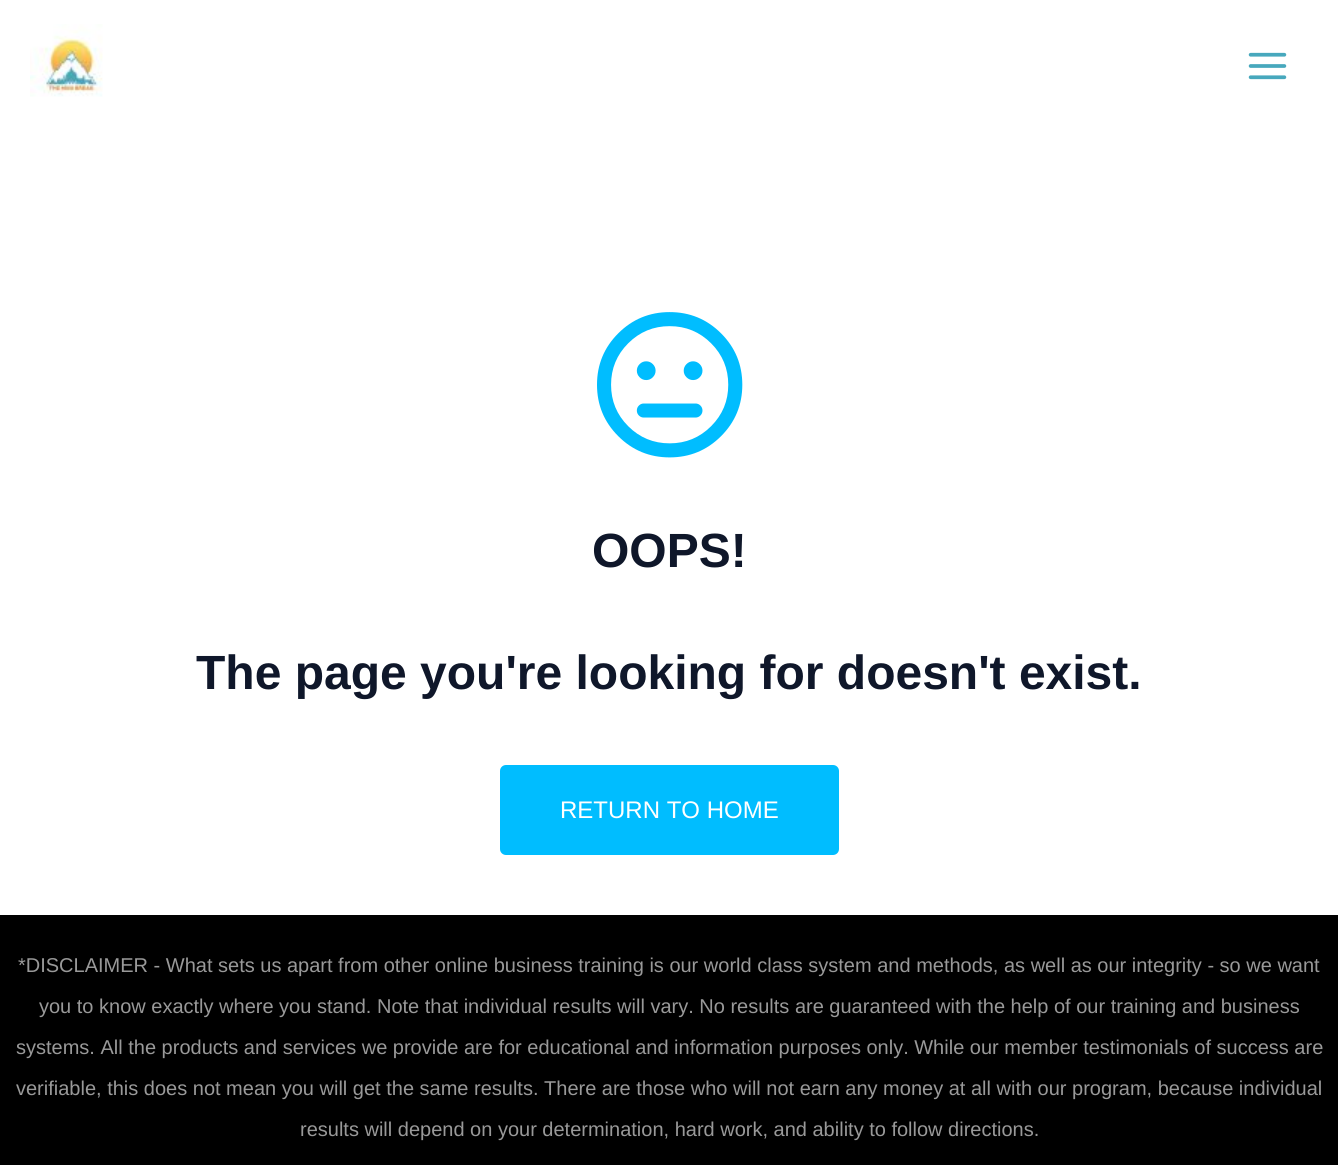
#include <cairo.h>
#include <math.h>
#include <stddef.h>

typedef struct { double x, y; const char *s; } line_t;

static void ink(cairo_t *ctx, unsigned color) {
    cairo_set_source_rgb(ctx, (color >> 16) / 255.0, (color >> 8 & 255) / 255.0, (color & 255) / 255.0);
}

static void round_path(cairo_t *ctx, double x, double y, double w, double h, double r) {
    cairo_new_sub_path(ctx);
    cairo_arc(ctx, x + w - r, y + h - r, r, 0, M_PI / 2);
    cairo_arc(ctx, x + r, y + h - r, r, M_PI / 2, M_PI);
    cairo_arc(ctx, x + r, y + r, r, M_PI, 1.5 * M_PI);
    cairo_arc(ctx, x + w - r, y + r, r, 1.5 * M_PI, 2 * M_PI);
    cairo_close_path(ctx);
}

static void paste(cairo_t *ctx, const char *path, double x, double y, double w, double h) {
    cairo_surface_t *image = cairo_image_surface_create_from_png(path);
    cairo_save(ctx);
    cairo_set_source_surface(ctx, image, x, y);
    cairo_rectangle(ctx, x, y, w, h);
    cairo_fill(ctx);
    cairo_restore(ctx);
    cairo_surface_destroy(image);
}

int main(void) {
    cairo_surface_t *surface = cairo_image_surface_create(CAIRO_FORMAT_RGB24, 1338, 1165);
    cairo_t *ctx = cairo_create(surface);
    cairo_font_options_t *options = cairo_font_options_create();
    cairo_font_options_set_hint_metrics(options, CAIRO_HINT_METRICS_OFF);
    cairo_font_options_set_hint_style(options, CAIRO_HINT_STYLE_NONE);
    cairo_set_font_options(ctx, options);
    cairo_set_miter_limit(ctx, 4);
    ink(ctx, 0xFFFFFF);
    cairo_paint(ctx);
    paste(ctx, "media/1.png", 30, 24, 73, 73);
    paste(ctx, "media/2.png", 1248, 52, 39, 28);
    paste(ctx, "media/3.png", 597, 312, 146, 146);
    cairo_select_font_face(ctx, "Liberation Sans", CAIRO_FONT_SLANT_NORMAL, CAIRO_FONT_WEIGHT_BOLD);
    cairo_set_font_size(ctx, 48);
    ink(ctx, 0x0F172A);
    cairo_move_to(ctx, 592, 567);
    cairo_show_text(ctx, "OOPS!");
    cairo_move_to(ctx, 196, 689);
    cairo_show_text(ctx, "The page you're looking for doesn't exist.");
    ink(ctx, 0x00BDFF);
    round_path(ctx, 500, 765, 339, 90, 6);
    cairo_fill(ctx);
    cairo_select_font_face(ctx, "Liberation Sans", CAIRO_FONT_SLANT_NORMAL, CAIRO_FONT_WEIGHT_NORMAL);
    cairo_set_font_size(ctx, 24);
    ink(ctx, 0xFFFFFF);
    cairo_move_to(ctx, 560, 818);
    cairo_show_text(ctx, "RETURN TO HOME");
    ink(ctx, 0x000000);
    cairo_rectangle(ctx, 0, 915, 1338, 250);
    cairo_fill(ctx);
    cairo_set_font_size(ctx, 20);
    ink(ctx, 0x999999);
    {
        static const line_t items[] = {
            {18, 972, "*DISCLAIMER - What sets us apart from other online business training is our world class system and methods, as well as our integrity - so we want"},
            {39, 1013, "you to know exactly where you stand. Note that individual results will vary. No results are guaranteed with the help of our training and business"},
            {16, 1054, "systems. All the products and services we provide are for educational and information purposes only. While our member testimonials of success are"},
            {16, 1095, "verifiable, this does not mean you will get the same results. There are those who will not earn any money at all with our program, because individual"},
            {300, 1136, "results will depend on your determination, hard work, and ability to follow directions."},
        };
        for (size_t i = 0; i < sizeof items / sizeof *items; i++) {
            cairo_move_to(ctx, items[i].x, items[i].y);
            cairo_show_text(ctx, items[i].s);
        }
    }
    cairo_surface_write_to_png(surface, "image.png");
    cairo_font_options_destroy(options);
    cairo_destroy(ctx);
    cairo_surface_destroy(surface);
    return 0;
}
